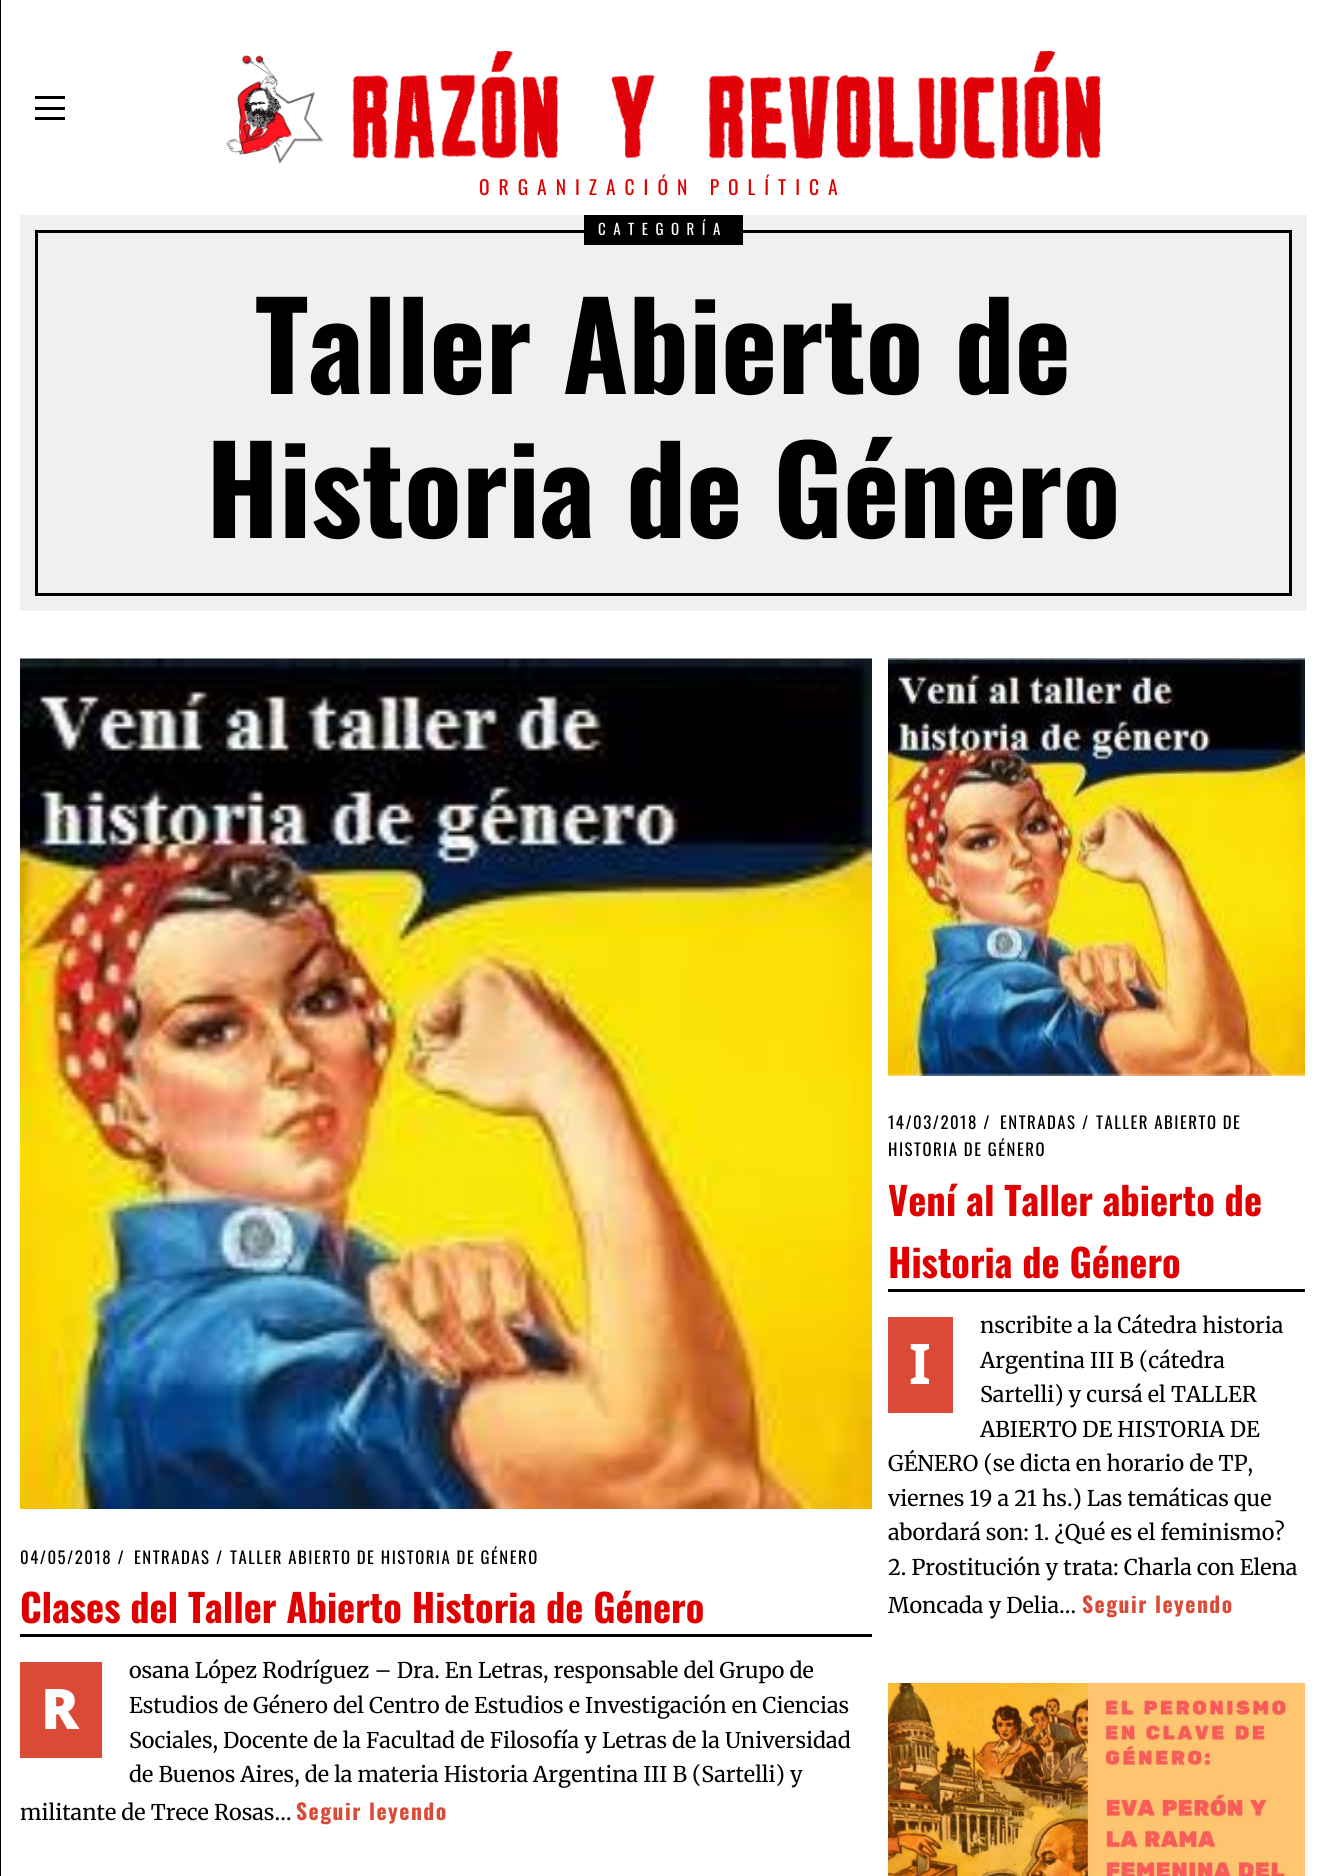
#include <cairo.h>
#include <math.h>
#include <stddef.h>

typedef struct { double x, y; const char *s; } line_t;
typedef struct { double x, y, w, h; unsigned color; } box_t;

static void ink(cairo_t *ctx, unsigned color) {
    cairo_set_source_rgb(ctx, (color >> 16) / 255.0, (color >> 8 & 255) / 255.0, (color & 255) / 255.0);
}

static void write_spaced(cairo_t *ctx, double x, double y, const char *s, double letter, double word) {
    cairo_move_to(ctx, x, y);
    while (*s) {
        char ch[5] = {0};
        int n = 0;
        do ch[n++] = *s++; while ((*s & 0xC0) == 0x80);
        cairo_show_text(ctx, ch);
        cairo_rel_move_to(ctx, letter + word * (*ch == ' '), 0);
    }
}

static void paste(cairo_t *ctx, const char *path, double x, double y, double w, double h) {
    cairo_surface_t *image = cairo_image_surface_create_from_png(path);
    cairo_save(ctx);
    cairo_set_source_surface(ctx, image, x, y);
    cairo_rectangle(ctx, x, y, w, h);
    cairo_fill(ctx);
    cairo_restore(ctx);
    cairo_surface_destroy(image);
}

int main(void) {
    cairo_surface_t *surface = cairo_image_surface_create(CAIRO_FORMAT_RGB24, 1326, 1876);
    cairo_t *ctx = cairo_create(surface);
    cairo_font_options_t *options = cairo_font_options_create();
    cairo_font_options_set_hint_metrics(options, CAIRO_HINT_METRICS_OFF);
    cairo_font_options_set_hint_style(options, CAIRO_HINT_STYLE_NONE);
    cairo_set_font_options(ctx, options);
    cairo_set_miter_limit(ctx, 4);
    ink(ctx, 0xFFFFFF);
    cairo_paint(ctx);
    {
        static const box_t items[] = {
            {0, 0, 1, 1876, 0x000000},
            {35, 96, 30, 3, 0x000000},
            {35, 107, 30, 3, 0x000000},
            {35, 117, 30, 3, 0x000000},
        };
        for (size_t i = 0; i < sizeof items / sizeof *items; i++) {
            ink(ctx, items[i].color);
            cairo_rectangle(ctx, items[i].x, items[i].y, items[i].w, items[i].h);
            cairo_fill(ctx);
        }
    }
    paste(ctx, "media/1.png", 226, 51, 875, 113);
    cairo_select_font_face(ctx, "Oswald", CAIRO_FONT_SLANT_NORMAL, CAIRO_FONT_WEIGHT_NORMAL);
    cairo_set_font_size(ctx, 19.5);
    ink(ctx, 0xE10000);
    write_spaced(ctx, 479, 195, "ORGANIZACIÓN POLÍTICA", 9, 0);
    ink(ctx, 0xF0F0F0);
    cairo_rectangle(ctx, 20, 215, 1287, 396);
    cairo_fill(ctx);
    cairo_rectangle(ctx, 36.5, 231.5, 1254, 363);
    ink(ctx, 0x000000);
    cairo_set_line_width(ctx, 3);
    cairo_stroke(ctx);
    cairo_rectangle(ctx, 584, 215, 159, 30);
    cairo_fill(ctx);
    cairo_set_font_size(ctx, 15);
    ink(ctx, 0xFFFFFF);
    write_spaced(ctx, 598, 235, "CATEGORÍA", 7.5, 0);
    cairo_select_font_face(ctx, "Oswald", CAIRO_FONT_SLANT_NORMAL, CAIRO_FONT_WEIGHT_BOLD);
    cairo_set_font_size(ctx, 120);
    ink(ctx, 0x000000);
    cairo_move_to(ctx, 255, 394);
    cairo_show_text(ctx, "Taller Abierto de");
    cairo_move_to(ctx, 206, 538);
    cairo_show_text(ctx, "Historia de Género");
    paste(ctx, "media/2.png", 888, 658, 417, 418);
    cairo_rectangle(ctx, 888, 1289, 417, 3);
    cairo_fill(ctx);
    cairo_select_font_face(ctx, "Oswald", CAIRO_FONT_SLANT_NORMAL, CAIRO_FONT_WEIGHT_NORMAL);
    cairo_set_font_size(ctx, 16.75);
    {
        static const line_t items[] = {
            {888, 1129, "14/03/2018 /"},
            {1000, 1129, "ENTRADAS"},
            {1082, 1129, "/"},
            {1096, 1129, "TALLER ABIERTO DE"},
            {888, 1156, "HISTORIA DE GÉNERO"},
        };
        for (size_t i = 0; i < sizeof items / sizeof *items; i++) {
            write_spaced(ctx, items[i].x, items[i].y, items[i].s, 1.5, 0);
        }
    }
    cairo_select_font_face(ctx, "Oswald", CAIRO_FONT_SLANT_NORMAL, CAIRO_FONT_WEIGHT_BOLD);
    cairo_set_font_size(ctx, 38.4);
    ink(ctx, 0xE10000);
    cairo_move_to(ctx, 888, 1216);
    cairo_show_text(ctx, "Vení al Taller abierto de");
    cairo_move_to(ctx, 888, 1278);
    cairo_show_text(ctx, "Historia de Género");
    cairo_select_font_face(ctx, "Merriweather", CAIRO_FONT_SLANT_NORMAL, CAIRO_FONT_WEIGHT_NORMAL);
    cairo_set_font_size(ctx, 21.6);
    ink(ctx, 0x000000);
    {
        static const line_t items[] = {
            {980, 1333, "nscribite a la Cátedra historia"},
            {980, 1368, "Argentina III B (cátedra"},
            {980, 1402, "Sartelli) y cursá el TALLER"},
            {980, 1437, "ABIERTO DE HISTORIA DE"},
            {888, 1471, "GÉNERO (se dicta en horario de TP,"},
            {888, 1506, "viernes 19 a 21 hs.) Las temáticas que"},
            {888, 1540, "abordará son: 1. ¿Qué es el feminismo?"},
            {888, 1575, "2. Prostitución y trata: Charla con Elena"},
            {888, 1613, "Moncada y Delia…"},
        };
        for (size_t i = 0; i < sizeof items / sizeof *items; i++) {
            cairo_move_to(ctx, items[i].x, items[i].y);
            cairo_show_text(ctx, items[i].s);
        }
    }
    cairo_select_font_face(ctx, "Oswald", CAIRO_FONT_SLANT_NORMAL, CAIRO_FONT_WEIGHT_BOLD);
    ink(ctx, 0xDB4A37);
    write_spaced(ctx, 1082, 1613, "Seguir leyendo", 1.5, 0);
    cairo_rectangle(ctx, 888, 1317, 65, 96);
    cairo_fill(ctx);
    cairo_select_font_face(ctx, "Noto Sans", CAIRO_FONT_SLANT_NORMAL, CAIRO_FONT_WEIGHT_BOLD);
    cairo_set_font_size(ctx, 56);
    ink(ctx, 0xFFFFFF);
    cairo_move_to(ctx, 909, 1384);
    cairo_show_text(ctx, "I");
    paste(ctx, "media/3.png", 20, 658, 852, 851);
    ink(ctx, 0x000000);
    cairo_rectangle(ctx, 20, 1634, 852, 3);
    cairo_fill(ctx);
    cairo_select_font_face(ctx, "Oswald", CAIRO_FONT_SLANT_NORMAL, CAIRO_FONT_WEIGHT_NORMAL);
    cairo_set_font_size(ctx, 16.75);
    {
        static const line_t items[] = {
            {20, 1564, "04/05/2018 /"},
            {134, 1564, "ENTRADAS"},
            {216, 1564, "/"},
            {230, 1564, "TALLER ABIERTO DE HISTORIA DE GÉNERO"},
        };
        for (size_t i = 0; i < sizeof items / sizeof *items; i++) {
            write_spaced(ctx, items[i].x, items[i].y, items[i].s, 1.5, 0);
        }
    }
    cairo_select_font_face(ctx, "Oswald", CAIRO_FONT_SLANT_NORMAL, CAIRO_FONT_WEIGHT_BOLD);
    cairo_set_font_size(ctx, 38.4);
    ink(ctx, 0xE10000);
    cairo_move_to(ctx, 20, 1623);
    cairo_show_text(ctx, "Clases del Taller Abierto Historia de Género");
    cairo_select_font_face(ctx, "Merriweather", CAIRO_FONT_SLANT_NORMAL, CAIRO_FONT_WEIGHT_NORMAL);
    cairo_set_font_size(ctx, 21.6);
    ink(ctx, 0x000000);
    {
        static const line_t items[] = {
            {129, 1678, "osana López Rodríguez – Dra. En Letras, responsable del Grupo de"},
            {129, 1713, "Estudios de Género del Centro de Estudios e Investigación en Ciencias"},
            {129, 1748, "Sociales, Docente de la Facultad de Filosofía y Letras de la Universidad"},
            {129, 1782, "de Buenos Aires, de la materia Historia Argentina III B (Sartelli) y"},
            {20, 1820, "militante de Trece Rosas…"},
        };
        for (size_t i = 0; i < sizeof items / sizeof *items; i++) {
            cairo_move_to(ctx, items[i].x, items[i].y);
            cairo_show_text(ctx, items[i].s);
        }
    }
    cairo_select_font_face(ctx, "Oswald", CAIRO_FONT_SLANT_NORMAL, CAIRO_FONT_WEIGHT_BOLD);
    ink(ctx, 0xDB4A37);
    write_spaced(ctx, 296, 1820, "Seguir leyendo", 1.5, 0);
    cairo_rectangle(ctx, 20, 1662, 82, 96);
    cairo_fill(ctx);
    cairo_select_font_face(ctx, "Noto Sans Black", CAIRO_FONT_SLANT_NORMAL, CAIRO_FONT_WEIGHT_NORMAL);
    cairo_set_font_size(ctx, 56);
    ink(ctx, 0xFFFFFF);
    cairo_move_to(ctx, 41, 1729);
    cairo_show_text(ctx, "R");
    paste(ctx, "media/4.png", 888, 1683, 417, 193);
    cairo_surface_write_to_png(surface, "image.png");
    cairo_font_options_destroy(options);
    cairo_destroy(ctx);
    cairo_surface_destroy(surface);
    return 0;
}
